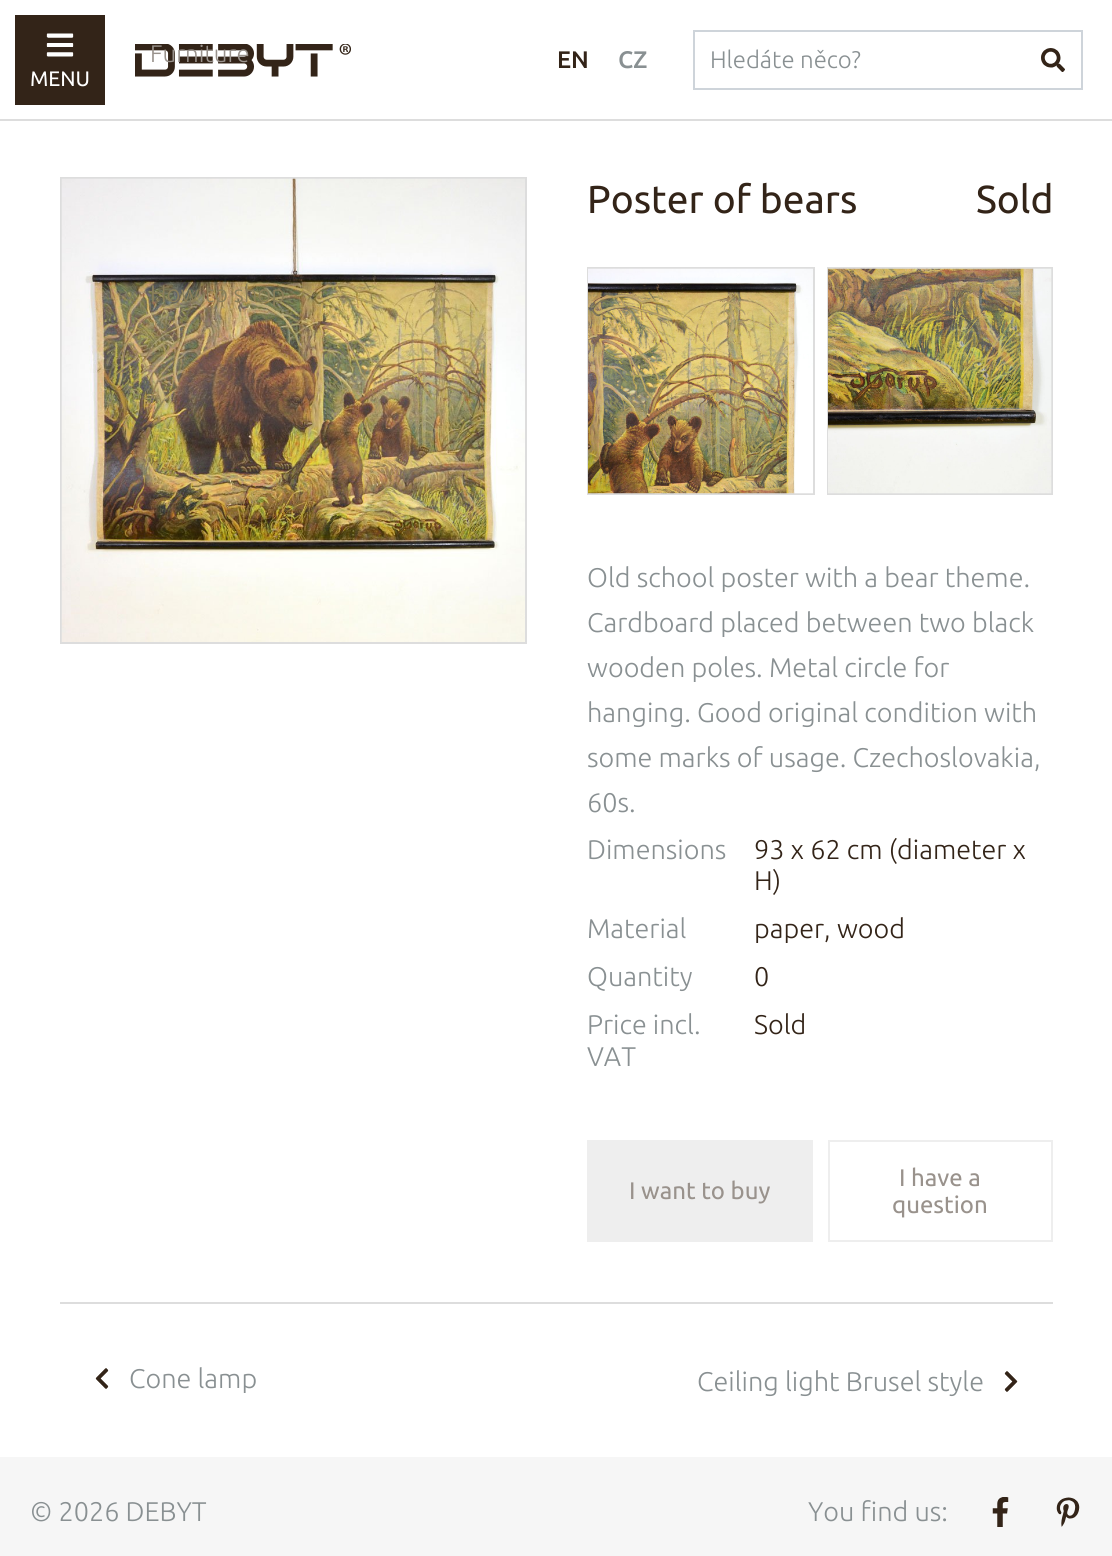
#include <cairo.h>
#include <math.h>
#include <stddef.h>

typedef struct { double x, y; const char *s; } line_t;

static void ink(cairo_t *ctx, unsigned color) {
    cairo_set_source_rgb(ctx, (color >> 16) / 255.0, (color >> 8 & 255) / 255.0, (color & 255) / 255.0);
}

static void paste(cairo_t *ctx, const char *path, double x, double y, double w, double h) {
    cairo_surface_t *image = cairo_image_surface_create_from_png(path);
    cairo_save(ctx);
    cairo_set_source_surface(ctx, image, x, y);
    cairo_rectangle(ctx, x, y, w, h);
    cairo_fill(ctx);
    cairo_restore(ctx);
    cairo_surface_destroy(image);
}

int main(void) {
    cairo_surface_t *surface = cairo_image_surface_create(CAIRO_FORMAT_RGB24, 1112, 1556);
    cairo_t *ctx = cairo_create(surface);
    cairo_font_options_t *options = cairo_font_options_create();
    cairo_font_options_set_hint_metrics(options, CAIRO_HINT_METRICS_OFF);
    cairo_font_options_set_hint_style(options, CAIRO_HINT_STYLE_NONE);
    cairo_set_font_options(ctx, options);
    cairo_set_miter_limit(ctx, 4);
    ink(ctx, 0xFFFFFF);
    cairo_paint(ctx);
    paste(ctx, "media/1.png", 135, 44, 216, 33);
    cairo_select_font_face(ctx, "Ubuntu Light", CAIRO_FONT_SLANT_NORMAL, CAIRO_FONT_WEIGHT_NORMAL);
    cairo_set_font_size(ctx, 24);
    ink(ctx, 0x99928C);
    cairo_move_to(ctx, 150, 62);
    cairo_show_text(ctx, "Furniture");
    cairo_rectangle(ctx, 61, 178, 465, 465);
    ink(ctx, 0xDDDDDD);
    cairo_stroke(ctx);
    paste(ctx, "media/4.png", 61, 178, 464, 464);
    ink(ctx, 0x8B7F5A);
    cairo_move_to(ctx, 150, 302);
    cairo_show_text(ctx, "How to shop");
    ink(ctx, 0xDDDDDD);
    cairo_rectangle(ctx, 0, 119, 1112, 2);
    cairo_fill(ctx);
    cairo_select_font_face(ctx, "Ubuntu Medium", CAIRO_FONT_SLANT_NORMAL, CAIRO_FONT_WEIGHT_NORMAL);
    ink(ctx, 0x332418);
    cairo_move_to(ctx, 557, 68);
    cairo_show_text(ctx, "EN");
    ink(ctx, 0x899092);
    cairo_move_to(ctx, 618, 68);
    cairo_show_text(ctx, "CZ");
    cairo_rectangle(ctx, 694, 31, 388, 58);
    ink(ctx, 0xCED4DA);
    cairo_stroke(ctx);
    cairo_select_font_face(ctx, "Ubuntu Light", CAIRO_FONT_SLANT_NORMAL, CAIRO_FONT_WEIGHT_NORMAL);
    ink(ctx, 0x899092);
    cairo_move_to(ctx, 710, 68);
    cairo_show_text(ctx, "Hledáte něco?");
    paste(ctx, "media/2.png", 1041, 48, 24, 24);
    ink(ctx, 0x332418);
    cairo_rectangle(ctx, 15, 15, 90, 90);
    cairo_fill(ctx);
    paste(ctx, "media/3.png", 46, 33, 28, 24);
    cairo_select_font_face(ctx, "Ubuntu", CAIRO_FONT_SLANT_NORMAL, CAIRO_FONT_WEIGHT_NORMAL);
    cairo_set_font_size(ctx, 21);
    ink(ctx, 0xFFFFFF);
    cairo_move_to(ctx, 30, 86);
    cairo_show_text(ctx, "MENU");
    cairo_set_font_size(ctx, 39);
    ink(ctx, 0x332418);
    cairo_move_to(ctx, 587, 213);
    cairo_show_text(ctx, "Poster of bears");
    cairo_move_to(ctx, 976, 213);
    cairo_show_text(ctx, "Sold");
    cairo_rectangle(ctx, 588, 268, 226, 226);
    ink(ctx, 0xDDDDDD);
    cairo_stroke(ctx);
    paste(ctx, "media/5.png", 588, 268, 225, 226);
    cairo_rectangle(ctx, 828, 268, 224, 226);
    cairo_stroke(ctx);
    paste(ctx, "media/6.png", 828, 268, 224, 226);
    cairo_select_font_face(ctx, "Ubuntu Light", CAIRO_FONT_SLANT_NORMAL, CAIRO_FONT_WEIGHT_NORMAL);
    cairo_set_font_size(ctx, 27);
    ink(ctx, 0x899092);
    {
        static const line_t items[] = {
            {587, 587, "Old school poster with a bear theme."},
            {587, 632, "Cardboard placed between two black"},
            {587, 677, "wooden poles. Metal circle for"},
            {587, 722, "hanging. Good original condition with"},
            {587, 767, "some marks of usage. Czechoslovakia,"},
            {587, 812, "60s."},
            {587, 859, "Dimensions"},
        };
        for (size_t i = 0; i < sizeof items / sizeof *items; i++) {
            cairo_move_to(ctx, items[i].x, items[i].y);
            cairo_show_text(ctx, items[i].s);
        }
    }
    ink(ctx, 0x332418);
    cairo_move_to(ctx, 754, 859);
    cairo_show_text(ctx, "93 x 62 cm (diameter x");
    cairo_move_to(ctx, 754, 890);
    cairo_show_text(ctx, "H)");
    ink(ctx, 0x899092);
    cairo_move_to(ctx, 587, 938);
    cairo_show_text(ctx, "Material");
    ink(ctx, 0x332418);
    cairo_move_to(ctx, 754, 938);
    cairo_show_text(ctx, "paper, wood");
    ink(ctx, 0x899092);
    cairo_move_to(ctx, 587, 986);
    cairo_show_text(ctx, "Quantity");
    ink(ctx, 0x332418);
    cairo_move_to(ctx, 754, 986);
    cairo_show_text(ctx, "0");
    ink(ctx, 0x899092);
    cairo_move_to(ctx, 587, 1034);
    cairo_show_text(ctx, "Price incl.");
    cairo_move_to(ctx, 587, 1066);
    cairo_show_text(ctx, "VAT");
    ink(ctx, 0x332418);
    cairo_move_to(ctx, 754, 1034);
    cairo_show_text(ctx, "Sold");
    ink(ctx, 0xEEEEEE);
    cairo_rectangle(ctx, 587, 1140, 226, 102);
    cairo_fill(ctx);
    cairo_select_font_face(ctx, "Ubuntu", CAIRO_FONT_SLANT_NORMAL, CAIRO_FONT_WEIGHT_NORMAL);
    cairo_set_font_size(ctx, 24);
    ink(ctx, 0x99928C);
    cairo_move_to(ctx, 629, 1199);
    cairo_show_text(ctx, "I want to buy");
    cairo_rectangle(ctx, 829, 1141, 223, 100);
    ink(ctx, 0xEEEEEE);
    cairo_stroke(ctx);
    ink(ctx, 0x99928C);
    cairo_move_to(ctx, 899, 1186);
    cairo_show_text(ctx, "I have a");
    cairo_move_to(ctx, 892, 1213);
    cairo_show_text(ctx, "question");
    ink(ctx, 0xDDDDDD);
    cairo_rectangle(ctx, 60, 1302, 993, 2);
    cairo_fill(ctx);
    paste(ctx, "media/7.png", 95, 1368, 14, 21);
    cairo_select_font_face(ctx, "Ubuntu Light", CAIRO_FONT_SLANT_NORMAL, CAIRO_FONT_WEIGHT_NORMAL);
    cairo_set_font_size(ctx, 27);
    ink(ctx, 0x899092);
    cairo_move_to(ctx, 129, 1388);
    cairo_show_text(ctx, "Cone lamp");
    cairo_move_to(ctx, 697, 1391);
    cairo_show_text(ctx, "Ceiling light Brusel style");
    paste(ctx, "media/8.png", 1004, 1371, 14, 21);
    ink(ctx, 0xF6F6F6);
    cairo_rectangle(ctx, 0, 1457, 1112, 99);
    cairo_fill(ctx);
    ink(ctx, 0x899092);
    cairo_move_to(ctx, 30, 1521);
    cairo_show_text(ctx, "© 2026 DEBYT");
    cairo_move_to(ctx, 808, 1521);
    cairo_show_text(ctx, "You find us:");
    paste(ctx, "media/9.png", 992, 1497, 17, 30);
    paste(ctx, "media/10.png", 1056, 1497, 24, 30);
    cairo_surface_write_to_png(surface, "image.png");
    cairo_font_options_destroy(options);
    cairo_destroy(ctx);
    cairo_surface_destroy(surface);
    return 0;
}
